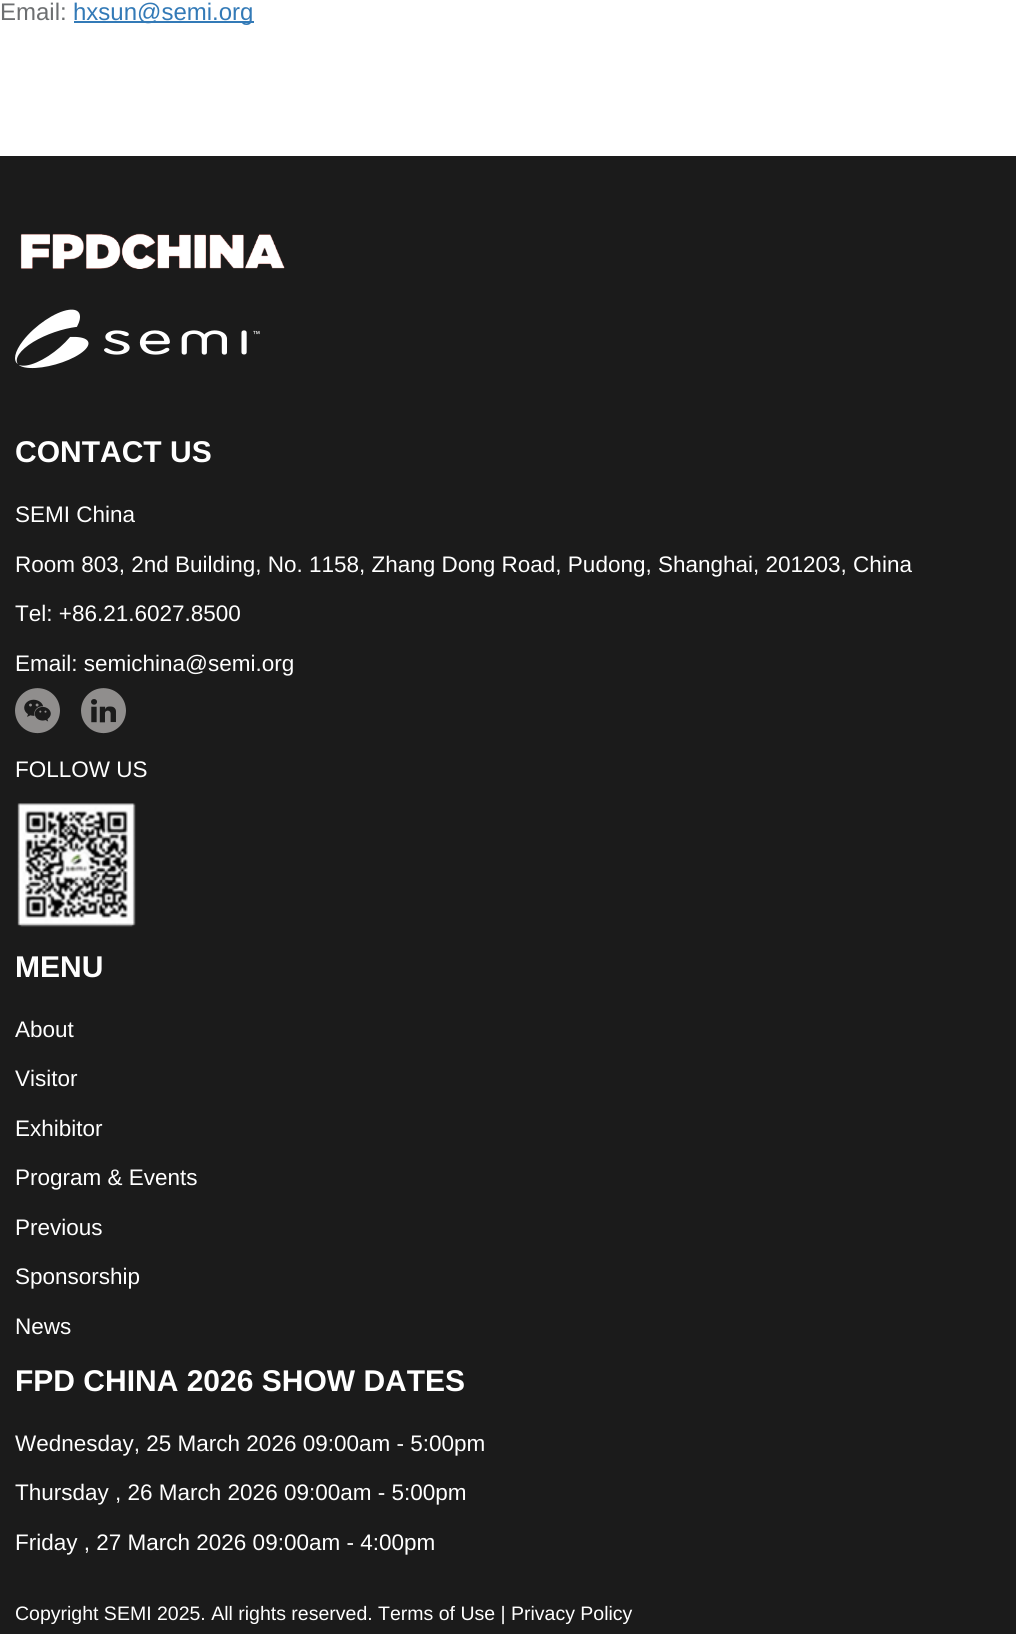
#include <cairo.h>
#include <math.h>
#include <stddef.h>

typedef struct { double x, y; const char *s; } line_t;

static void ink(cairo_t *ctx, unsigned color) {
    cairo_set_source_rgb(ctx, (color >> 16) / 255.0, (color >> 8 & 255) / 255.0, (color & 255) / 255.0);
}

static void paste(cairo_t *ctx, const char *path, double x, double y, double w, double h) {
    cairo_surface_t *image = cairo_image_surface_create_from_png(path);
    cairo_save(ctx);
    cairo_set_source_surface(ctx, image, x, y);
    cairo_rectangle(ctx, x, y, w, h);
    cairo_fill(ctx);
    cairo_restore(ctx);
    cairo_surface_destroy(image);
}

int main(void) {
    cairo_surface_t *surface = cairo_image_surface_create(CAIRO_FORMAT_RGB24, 1016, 1634);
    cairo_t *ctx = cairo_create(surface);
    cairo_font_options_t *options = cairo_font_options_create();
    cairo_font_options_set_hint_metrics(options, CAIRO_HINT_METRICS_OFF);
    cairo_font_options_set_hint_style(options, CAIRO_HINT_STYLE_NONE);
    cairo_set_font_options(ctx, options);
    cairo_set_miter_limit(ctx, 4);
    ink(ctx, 0xFFFFFF);
    cairo_paint(ctx);
    cairo_select_font_face(ctx, "Liberation Sans", CAIRO_FONT_SLANT_NORMAL, CAIRO_FONT_WEIGHT_NORMAL);
    cairo_set_font_size(ctx, 24);
    ink(ctx, 0x6D6F71);
    cairo_move_to(ctx, 0, 20);
    cairo_show_text(ctx, "Email:");
    ink(ctx, 0x337AB7);
    cairo_rectangle(ctx, 74, 21, 180, 2);
    cairo_fill(ctx);
    cairo_move_to(ctx, 73, 20);
    cairo_show_text(ctx, "hxsun@semi.org");
    ink(ctx, 0x1B1B1B);
    cairo_rectangle(ctx, 0, 156, 1016, 1478);
    cairo_fill(ctx);
    paste(ctx, "media/1.png", 20, 233, 265, 36);
    paste(ctx, "media/2.png", 15, 309, 245, 60);
    cairo_select_font_face(ctx, "Liberation Sans", CAIRO_FONT_SLANT_NORMAL, CAIRO_FONT_WEIGHT_BOLD);
    cairo_set_font_size(ctx, 30);
    ink(ctx, 0xFFFFFF);
    cairo_move_to(ctx, 15, 462);
    cairo_show_text(ctx, "CONTACT US");
    cairo_select_font_face(ctx, "Liberation Sans", CAIRO_FONT_SLANT_NORMAL, CAIRO_FONT_WEIGHT_NORMAL);
    cairo_set_font_size(ctx, 22.5);
    {
        static const line_t items[] = {
            {15, 522, "SEMI China"},
            {15, 572, "Room 803, 2nd Building, No. 1158, Zhang Dong Road, Pudong, Shanghai, 201203, China"},
            {15, 621, "Tel: +86.21.6027.8500"},
            {15, 671, "Email: semichina@semi.org"},
        };
        for (size_t i = 0; i < sizeof items / sizeof *items; i++) {
            cairo_move_to(ctx, items[i].x, items[i].y);
            cairo_show_text(ctx, items[i].s);
        }
    }
    paste(ctx, "media/3.png", 15, 688, 45, 46);
    paste(ctx, "media/4.png", 81, 688, 45, 46);
    cairo_move_to(ctx, 15, 777);
    cairo_show_text(ctx, "FOLLOW US");
    paste(ctx, "media/5.png", 17, 803, 119, 124);
    cairo_select_font_face(ctx, "Liberation Sans", CAIRO_FONT_SLANT_NORMAL, CAIRO_FONT_WEIGHT_BOLD);
    cairo_set_font_size(ctx, 30);
    cairo_move_to(ctx, 15, 977);
    cairo_show_text(ctx, "MENU");
    cairo_select_font_face(ctx, "Liberation Sans", CAIRO_FONT_SLANT_NORMAL, CAIRO_FONT_WEIGHT_NORMAL);
    cairo_set_font_size(ctx, 22.5);
    {
        static const line_t items[] = {
            {15, 1037, "About"},
            {15, 1086, "Visitor"},
            {15, 1136, "Exhibitor"},
            {15, 1185, "Program & Events"},
            {15, 1235, "Previous"},
            {15, 1284, "Sponsorship"},
            {15, 1334, "News"},
        };
        for (size_t i = 0; i < sizeof items / sizeof *items; i++) {
            cairo_move_to(ctx, items[i].x, items[i].y);
            cairo_show_text(ctx, items[i].s);
        }
    }
    cairo_select_font_face(ctx, "Liberation Sans", CAIRO_FONT_SLANT_NORMAL, CAIRO_FONT_WEIGHT_BOLD);
    cairo_set_font_size(ctx, 30);
    cairo_move_to(ctx, 15, 1391);
    cairo_show_text(ctx, "FPD CHINA 2026 SHOW DATES");
    cairo_select_font_face(ctx, "Liberation Sans", CAIRO_FONT_SLANT_NORMAL, CAIRO_FONT_WEIGHT_NORMAL);
    cairo_set_font_size(ctx, 22.5);
    {
        static const line_t items[] = {
            {15, 1451, "Wednesday, 25 March 2026 09:00am - 5:00pm"},
            {15, 1500, "Thursday , 26 March 2026 09:00am - 5:00pm"},
            {15, 1550, "Friday , 27 March 2026 09:00am - 4:00pm"},
        };
        for (size_t i = 0; i < sizeof items / sizeof *items; i++) {
            cairo_move_to(ctx, items[i].x, items[i].y);
            cairo_show_text(ctx, items[i].s);
        }
    }
    cairo_set_font_size(ctx, 19.5);
    cairo_move_to(ctx, 15, 1620);
    cairo_show_text(ctx, "Copyright SEMI 2025. All rights reserved. Terms of Use | Privacy Policy");
    cairo_surface_write_to_png(surface, "image.png");
    cairo_font_options_destroy(options);
    cairo_destroy(ctx);
    cairo_surface_destroy(surface);
    return 0;
}
